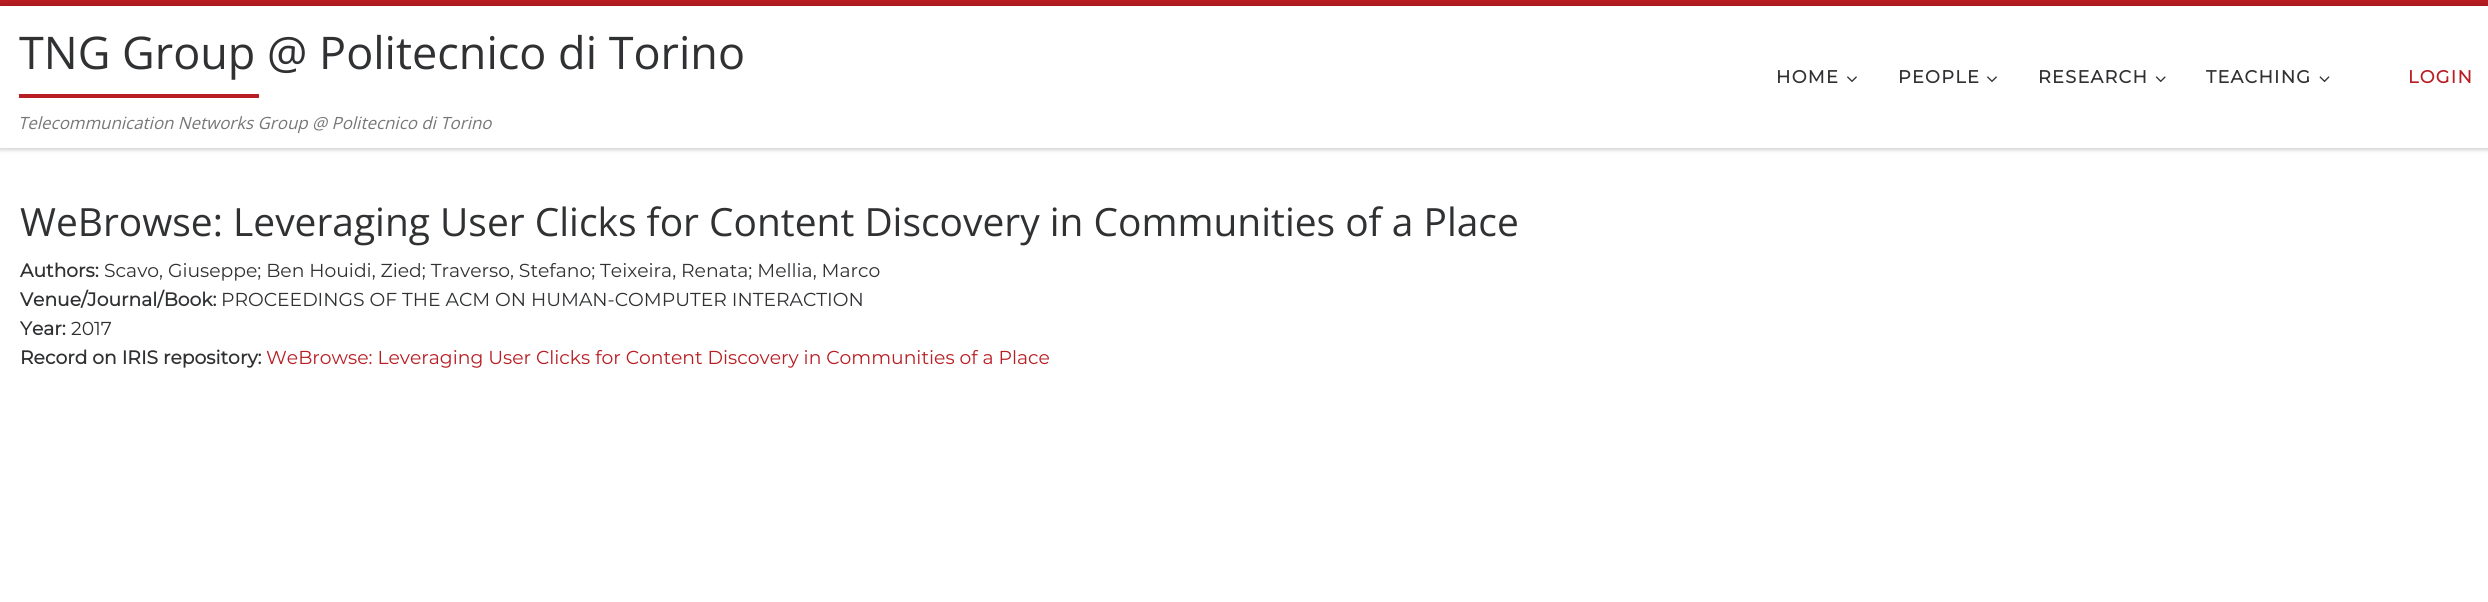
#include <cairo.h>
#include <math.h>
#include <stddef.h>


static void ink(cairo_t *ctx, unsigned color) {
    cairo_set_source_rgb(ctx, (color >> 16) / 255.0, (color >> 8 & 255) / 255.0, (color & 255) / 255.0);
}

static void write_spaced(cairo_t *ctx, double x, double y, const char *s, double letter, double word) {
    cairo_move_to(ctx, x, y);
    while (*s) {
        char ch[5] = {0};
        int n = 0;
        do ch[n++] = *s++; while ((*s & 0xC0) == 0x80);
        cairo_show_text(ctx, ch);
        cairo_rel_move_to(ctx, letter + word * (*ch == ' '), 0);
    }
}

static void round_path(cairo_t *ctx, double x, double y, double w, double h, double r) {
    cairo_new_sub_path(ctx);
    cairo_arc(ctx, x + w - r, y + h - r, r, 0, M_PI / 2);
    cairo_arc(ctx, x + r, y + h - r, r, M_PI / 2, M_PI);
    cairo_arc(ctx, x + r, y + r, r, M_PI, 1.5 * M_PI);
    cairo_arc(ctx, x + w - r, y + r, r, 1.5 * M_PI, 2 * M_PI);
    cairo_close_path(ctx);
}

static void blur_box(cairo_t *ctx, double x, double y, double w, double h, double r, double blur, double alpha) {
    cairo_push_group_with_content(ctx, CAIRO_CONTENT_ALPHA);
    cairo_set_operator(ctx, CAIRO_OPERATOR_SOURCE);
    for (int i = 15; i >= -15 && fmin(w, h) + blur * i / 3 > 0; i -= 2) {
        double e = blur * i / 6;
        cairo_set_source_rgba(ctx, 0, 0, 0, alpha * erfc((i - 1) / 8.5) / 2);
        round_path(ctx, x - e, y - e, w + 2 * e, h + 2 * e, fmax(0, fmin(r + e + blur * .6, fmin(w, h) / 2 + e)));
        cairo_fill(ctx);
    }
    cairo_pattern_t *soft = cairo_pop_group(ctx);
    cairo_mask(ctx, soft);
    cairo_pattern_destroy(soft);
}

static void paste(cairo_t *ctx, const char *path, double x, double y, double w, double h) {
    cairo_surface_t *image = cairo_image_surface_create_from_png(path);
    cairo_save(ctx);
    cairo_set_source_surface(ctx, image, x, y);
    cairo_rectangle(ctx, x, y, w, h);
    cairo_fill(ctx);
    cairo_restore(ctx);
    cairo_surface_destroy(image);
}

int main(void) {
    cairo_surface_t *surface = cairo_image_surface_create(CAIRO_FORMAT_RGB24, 2488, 602);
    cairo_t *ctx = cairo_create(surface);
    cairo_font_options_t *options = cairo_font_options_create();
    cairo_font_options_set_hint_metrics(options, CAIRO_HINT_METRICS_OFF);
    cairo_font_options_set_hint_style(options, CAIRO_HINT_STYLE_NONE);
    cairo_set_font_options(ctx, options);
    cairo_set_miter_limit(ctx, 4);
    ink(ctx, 0xFFFFFF);
    cairo_paint(ctx);
    ink(ctx, 0x666666);
    blur_box(ctx, 0, 3, 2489, 148, 0, 1, 0.08);
    ink(ctx, 0xB81D22);
    cairo_rectangle(ctx, 0, 0, 2488, 6);
    cairo_fill(ctx);
    ink(ctx, 0xEFEFEF);
    cairo_new_path(ctx);
    cairo_move_to(ctx, 0, 148);
    cairo_line_to(ctx, 0, 149);
    cairo_line_to(ctx, 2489, 149);
    cairo_line_to(ctx, 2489, 8);
    cairo_line_to(ctx, 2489, 148);
    cairo_close_path(ctx);
    cairo_fill(ctx);
    ink(ctx, 0x000000);
    blur_box(ctx, 0, 6, 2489, 142, 0, 3, 0.2);
    ink(ctx, 0xFFFFFF);
    cairo_rectangle(ctx, 0, 6, 2488, 142);
    cairo_fill(ctx);
    cairo_select_font_face(ctx, "Open Sans", CAIRO_FONT_SLANT_NORMAL, CAIRO_FONT_WEIGHT_NORMAL);
    cairo_set_font_size(ctx, 45);
    ink(ctx, 0x303133);
    cairo_move_to(ctx, 19, 69);
    cairo_show_text(ctx, "TNG Group @ Politecnico di Torino");
    ink(ctx, 0xB81D22);
    cairo_rectangle(ctx, 19, 94, 240, 4);
    cairo_fill(ctx);
    cairo_select_font_face(ctx, "Open Sans", CAIRO_FONT_SLANT_ITALIC, CAIRO_FONT_WEIGHT_NORMAL);
    cairo_set_font_size(ctx, 16.9);
    ink(ctx, 0x777777);
    cairo_move_to(ctx, 18, 129);
    cairo_show_text(ctx, "Telecommunication Networks Group @ Politecnico di Torino");
    cairo_select_font_face(ctx, "Montserrat", CAIRO_FONT_SLANT_NORMAL, CAIRO_FONT_WEIGHT_BOLD);
    cairo_set_font_size(ctx, 17.75);
    ink(ctx, 0x303133);
    write_spaced(ctx, 1776, 83, "HOME", 1.25, 0);
    paste(ctx, "media/1.png", 1847, 76, 10, 7);
    write_spaced(ctx, 1898, 83, "PEOPLE", 1.25, 0);
    paste(ctx, "media/1.png", 1987, 76, 10, 7);
    write_spaced(ctx, 2038, 83, "RESEARCH", 1.25, 0);
    paste(ctx, "media/2.png", 2155, 76, 11, 7);
    write_spaced(ctx, 2206, 83, "TEACHING", 1.25, 0);
    paste(ctx, "media/3.png", 2319, 76, 11, 7);
    ink(ctx, 0xB81D22);
    write_spaced(ctx, 2408, 83, "LOGIN", 1.25, 0);
    cairo_select_font_face(ctx, "Open Sans", CAIRO_FONT_SLANT_NORMAL, CAIRO_FONT_WEIGHT_NORMAL);
    cairo_set_font_size(ctx, 38.9);
    ink(ctx, 0x303133);
    cairo_move_to(ctx, 20, 236);
    cairo_show_text(ctx, "WeBrowse: Leveraging User Clicks for Content Discovery in Communities of a Place");
    cairo_select_font_face(ctx, "Montserrat", CAIRO_FONT_SLANT_NORMAL, CAIRO_FONT_WEIGHT_BOLD);
    cairo_set_font_size(ctx, 18.75);
    cairo_move_to(ctx, 20, 277);
    cairo_show_text(ctx, "Authors:");
    cairo_select_font_face(ctx, "Montserrat Thin", CAIRO_FONT_SLANT_NORMAL, CAIRO_FONT_WEIGHT_NORMAL);
    cairo_move_to(ctx, 104, 277);
    cairo_show_text(ctx, "Scavo, Giuseppe; Ben Houidi, Zied; Traverso, Stefano; Teixeira, Renata; Mellia, Marco");
    cairo_select_font_face(ctx, "Montserrat", CAIRO_FONT_SLANT_NORMAL, CAIRO_FONT_WEIGHT_BOLD);
    cairo_move_to(ctx, 20, 306);
    cairo_show_text(ctx, "Venue/Journal/Book:");
    cairo_select_font_face(ctx, "Montserrat Thin", CAIRO_FONT_SLANT_NORMAL, CAIRO_FONT_WEIGHT_NORMAL);
    cairo_move_to(ctx, 221, 306);
    cairo_show_text(ctx, "PROCEEDINGS OF THE ACM ON HUMAN-COMPUTER INTERACTION");
    cairo_select_font_face(ctx, "Montserrat", CAIRO_FONT_SLANT_NORMAL, CAIRO_FONT_WEIGHT_BOLD);
    cairo_move_to(ctx, 20, 335);
    cairo_show_text(ctx, "Year:");
    cairo_select_font_face(ctx, "Montserrat Thin", CAIRO_FONT_SLANT_NORMAL, CAIRO_FONT_WEIGHT_NORMAL);
    cairo_move_to(ctx, 71, 335);
    cairo_show_text(ctx, "2017");
    cairo_select_font_face(ctx, "Montserrat", CAIRO_FONT_SLANT_NORMAL, CAIRO_FONT_WEIGHT_BOLD);
    cairo_move_to(ctx, 20, 364);
    cairo_show_text(ctx, "Record on IRIS repository:");
    cairo_select_font_face(ctx, "Montserrat Thin", CAIRO_FONT_SLANT_NORMAL, CAIRO_FONT_WEIGHT_NORMAL);
    ink(ctx, 0xB81D22);
    cairo_move_to(ctx, 266, 364);
    cairo_show_text(ctx, "WeBrowse: Leveraging User Clicks for Content Discovery in Communities of a Place");
    cairo_surface_write_to_png(surface, "image.png");
    cairo_font_options_destroy(options);
    cairo_destroy(ctx);
    cairo_surface_destroy(surface);
    return 0;
}
